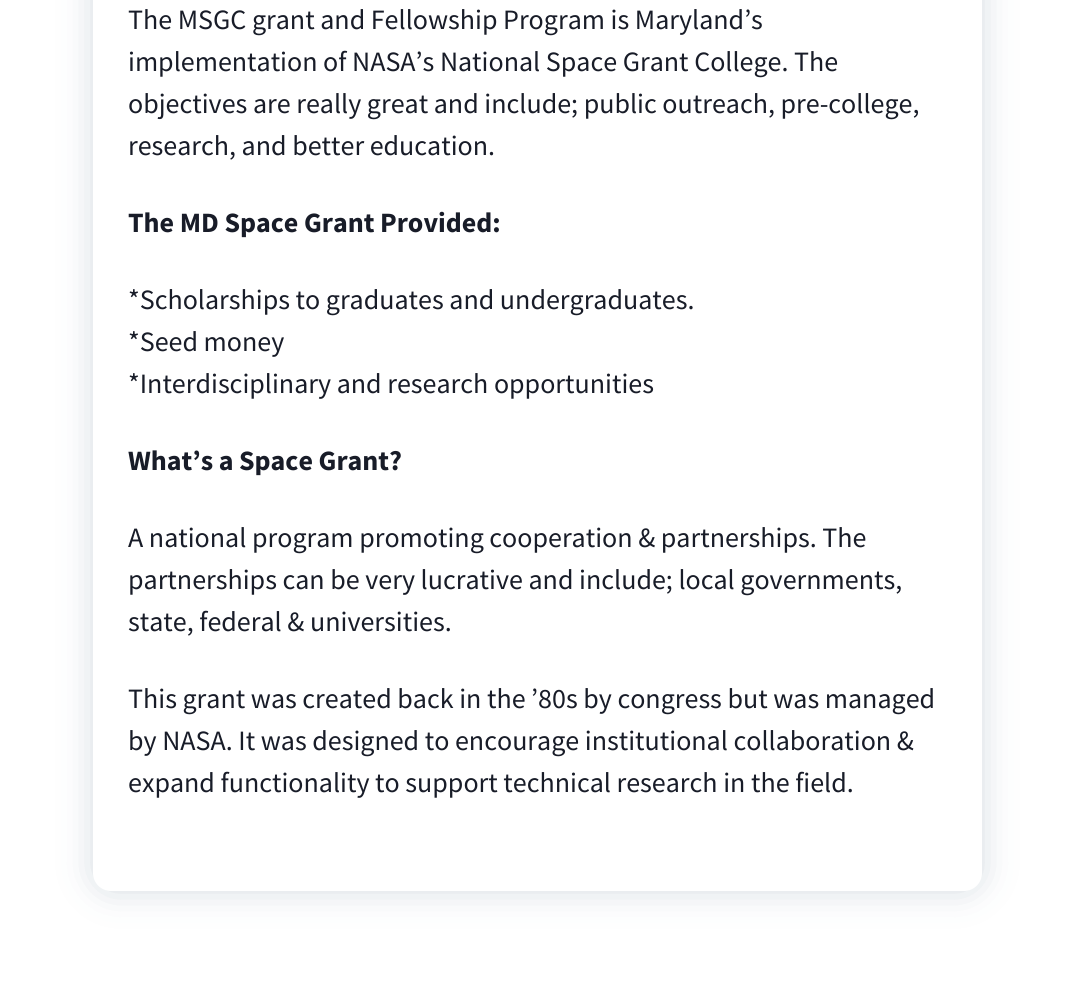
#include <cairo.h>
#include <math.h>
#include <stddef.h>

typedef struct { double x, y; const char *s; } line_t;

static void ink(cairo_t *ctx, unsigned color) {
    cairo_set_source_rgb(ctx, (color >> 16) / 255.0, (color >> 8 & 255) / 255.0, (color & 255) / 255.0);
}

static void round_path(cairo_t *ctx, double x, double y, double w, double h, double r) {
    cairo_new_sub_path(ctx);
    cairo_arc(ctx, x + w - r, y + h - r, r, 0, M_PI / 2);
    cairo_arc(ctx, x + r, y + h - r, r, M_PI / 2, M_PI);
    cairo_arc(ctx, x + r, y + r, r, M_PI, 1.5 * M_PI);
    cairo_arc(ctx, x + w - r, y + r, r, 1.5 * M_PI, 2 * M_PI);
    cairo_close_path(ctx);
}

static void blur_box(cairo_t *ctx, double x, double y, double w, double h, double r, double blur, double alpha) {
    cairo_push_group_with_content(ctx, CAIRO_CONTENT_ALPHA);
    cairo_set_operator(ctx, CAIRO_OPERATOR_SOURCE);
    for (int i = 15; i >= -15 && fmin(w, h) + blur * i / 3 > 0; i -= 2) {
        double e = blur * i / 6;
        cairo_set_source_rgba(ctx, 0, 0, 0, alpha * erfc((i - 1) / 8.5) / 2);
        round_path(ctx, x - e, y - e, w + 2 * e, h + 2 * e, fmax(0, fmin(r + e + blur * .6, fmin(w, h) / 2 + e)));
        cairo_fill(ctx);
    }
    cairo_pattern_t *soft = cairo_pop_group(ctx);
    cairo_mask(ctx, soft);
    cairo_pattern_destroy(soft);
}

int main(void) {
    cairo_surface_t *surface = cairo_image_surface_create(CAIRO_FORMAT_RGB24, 1074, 988);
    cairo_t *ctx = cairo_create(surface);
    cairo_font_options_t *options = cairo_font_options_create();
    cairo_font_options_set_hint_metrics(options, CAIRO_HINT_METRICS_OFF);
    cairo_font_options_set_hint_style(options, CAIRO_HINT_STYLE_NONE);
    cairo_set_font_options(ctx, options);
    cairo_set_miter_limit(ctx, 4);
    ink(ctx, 0xFFFFFF);
    cairo_paint(ctx);
    ink(ctx, 0x214462);
    blur_box(ctx, 93, -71, 889, 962, 18, 17.5, 0.19);
    ink(ctx, 0xFFFFFF);
    round_path(ctx, 93, -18, 889, 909, 18);
    cairo_fill(ctx);
    cairo_select_font_face(ctx, "Source Sans Pro", CAIRO_FONT_SLANT_NORMAL, CAIRO_FONT_WEIGHT_NORMAL);
    cairo_set_font_size(ctx, 28);
    ink(ctx, 0x181C28);
    {
        static const line_t items[] = {
            {128, 29, "The MSGC grant and Fellowship Program is Maryland’s"},
            {128, 71, "implementation of NASA’s National Space Grant College. The"},
            {128, 113, "objectives are really great and include; public outreach, pre-college,"},
            {128, 155, "research, and better education."},
        };
        for (size_t i = 0; i < sizeof items / sizeof *items; i++) {
            cairo_move_to(ctx, items[i].x, items[i].y);
            cairo_show_text(ctx, items[i].s);
        }
    }
    cairo_select_font_face(ctx, "Source Sans Pro", CAIRO_FONT_SLANT_NORMAL, CAIRO_FONT_WEIGHT_BOLD);
    cairo_move_to(ctx, 128, 232);
    cairo_show_text(ctx, "The MD Space Grant Provided:");
    cairo_select_font_face(ctx, "Source Sans Pro", CAIRO_FONT_SLANT_NORMAL, CAIRO_FONT_WEIGHT_NORMAL);
    {
        static const line_t items[] = {
            {128, 309, "*Scholarships to graduates and undergraduates."},
            {128, 351, "*Seed money"},
            {128, 393, "*Interdisciplinary and research opportunities"},
        };
        for (size_t i = 0; i < sizeof items / sizeof *items; i++) {
            cairo_move_to(ctx, items[i].x, items[i].y);
            cairo_show_text(ctx, items[i].s);
        }
    }
    cairo_select_font_face(ctx, "Source Sans Pro", CAIRO_FONT_SLANT_NORMAL, CAIRO_FONT_WEIGHT_BOLD);
    cairo_move_to(ctx, 128, 470);
    cairo_show_text(ctx, "What’s a Space Grant?");
    cairo_select_font_face(ctx, "Source Sans Pro", CAIRO_FONT_SLANT_NORMAL, CAIRO_FONT_WEIGHT_NORMAL);
    {
        static const line_t items[] = {
            {128, 547, "A national program promoting cooperation & partnerships. The"},
            {128, 589, "partnerships can be very lucrative and include; local governments,"},
            {128, 631, "state, federal & universities."},
            {128, 708, "This grant was created back in the ’80s by congress but was managed"},
            {128, 750, "by NASA. It was designed to encourage institutional collaboration &"},
            {128, 792, "expand functionality to support technical research in the field."},
        };
        for (size_t i = 0; i < sizeof items / sizeof *items; i++) {
            cairo_move_to(ctx, items[i].x, items[i].y);
            cairo_show_text(ctx, items[i].s);
        }
    }
    cairo_surface_write_to_png(surface, "image.png");
    cairo_font_options_destroy(options);
    cairo_destroy(ctx);
    cairo_surface_destroy(surface);
    return 0;
}
